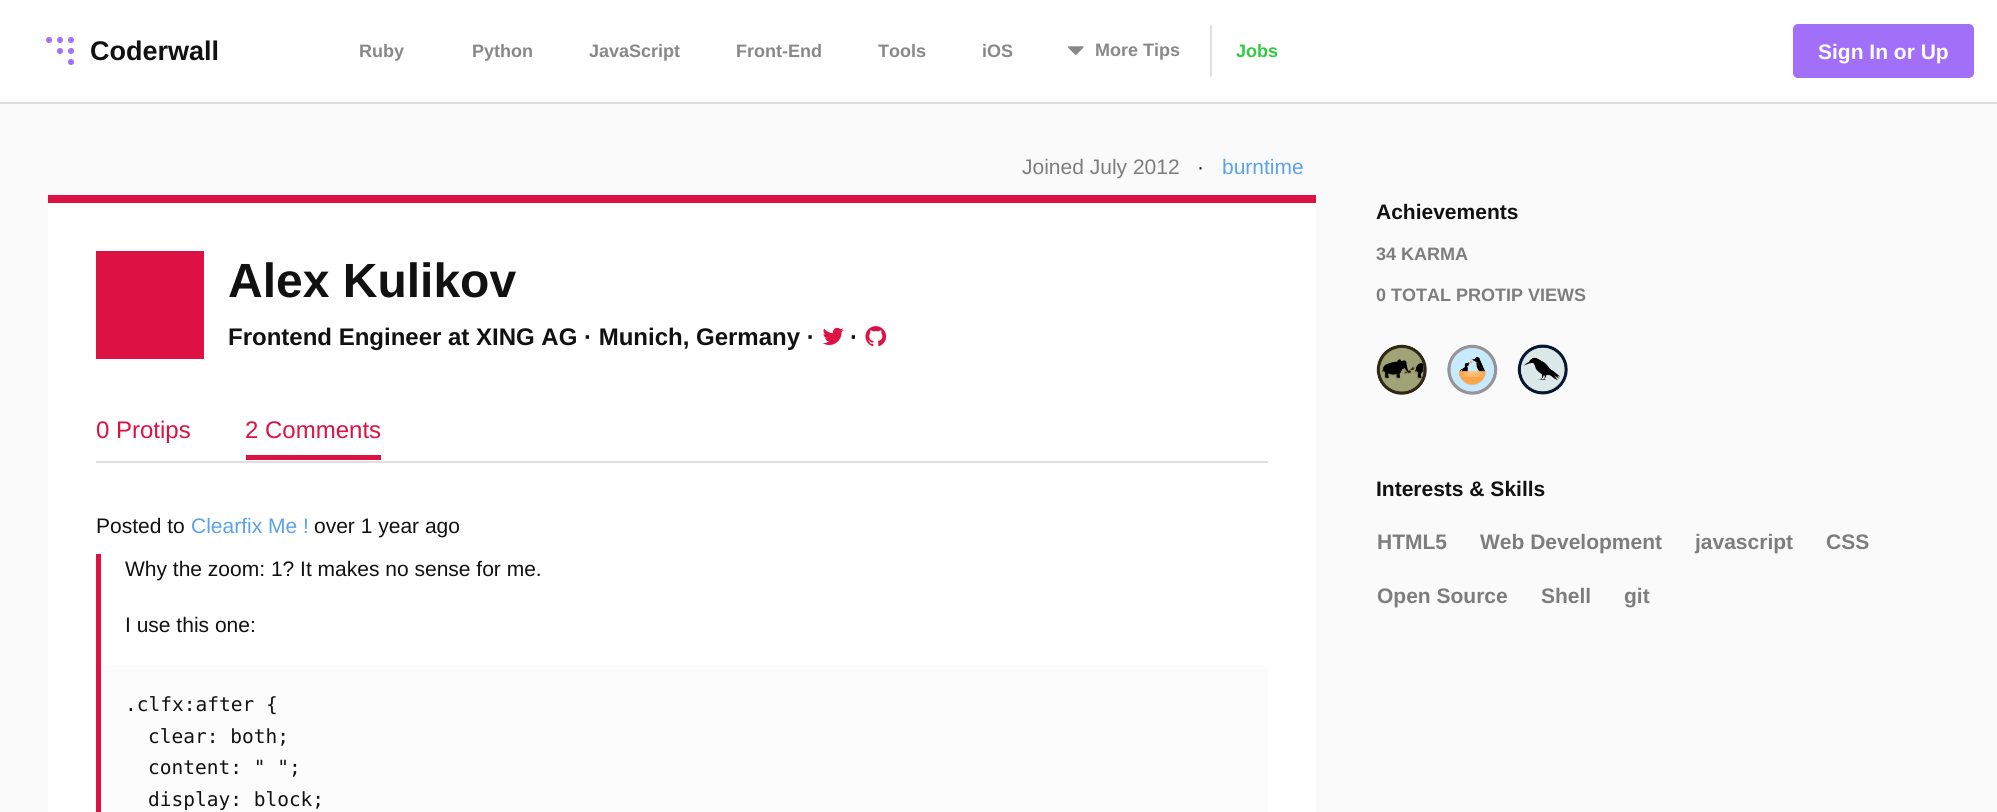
#include <cairo.h>
#include <math.h>
#include <stddef.h>

typedef struct { double x, y; const char *s; } line_t;
typedef struct { double x, y, w, h; unsigned color; } box_t;

static void ink(cairo_t *ctx, unsigned color) {
    cairo_set_source_rgb(ctx, (color >> 16) / 255.0, (color >> 8 & 255) / 255.0, (color & 255) / 255.0);
}

static void round_path(cairo_t *ctx, double x, double y, double w, double h, double r) {
    cairo_new_sub_path(ctx);
    cairo_arc(ctx, x + w - r, y + h - r, r, 0, M_PI / 2);
    cairo_arc(ctx, x + r, y + h - r, r, M_PI / 2, M_PI);
    cairo_arc(ctx, x + r, y + r, r, M_PI, 1.5 * M_PI);
    cairo_arc(ctx, x + w - r, y + r, r, 1.5 * M_PI, 2 * M_PI);
    cairo_close_path(ctx);
}

static void paste(cairo_t *ctx, const char *path, double x, double y, double w, double h) {
    cairo_surface_t *image = cairo_image_surface_create_from_png(path);
    cairo_save(ctx);
    cairo_set_source_surface(ctx, image, x, y);
    cairo_rectangle(ctx, x, y, w, h);
    cairo_fill(ctx);
    cairo_restore(ctx);
    cairo_surface_destroy(image);
}

int main(void) {
    cairo_surface_t *surface = cairo_image_surface_create(CAIRO_FORMAT_RGB24, 1997, 812);
    cairo_t *ctx = cairo_create(surface);
    cairo_font_options_t *options = cairo_font_options_create();
    cairo_font_options_set_hint_metrics(options, CAIRO_HINT_METRICS_OFF);
    cairo_font_options_set_hint_style(options, CAIRO_HINT_STYLE_NONE);
    cairo_set_font_options(ctx, options);
    cairo_set_miter_limit(ctx, 4);
    ink(ctx, 0xFAFAFA);
    cairo_paint(ctx);
    ink(ctx, 0xFFFFFF);
    cairo_rectangle(ctx, 0, 0, 1997, 102);
    cairo_fill(ctx);
    ink(ctx, 0xDFDFDF);
    cairo_rectangle(ctx, 0, 102, 1997, 2);
    cairo_fill(ctx);
    ink(ctx, 0xA26FF9);
    cairo_arc(ctx, 49, 40, 3, 0, 2 * M_PI);
    cairo_fill(ctx);
    cairo_arc(ctx, 60, 40, 3, 0, 2 * M_PI);
    cairo_fill(ctx);
    cairo_arc(ctx, 71, 40, 3, 0, 2 * M_PI);
    cairo_fill(ctx);
    cairo_arc(ctx, 60, 51, 3, 0, 2 * M_PI);
    cairo_fill(ctx);
    cairo_arc(ctx, 71, 51, 3, 0, 2 * M_PI);
    cairo_fill(ctx);
    cairo_arc(ctx, 71, 62, 3, 0, 2 * M_PI);
    cairo_fill(ctx);
    cairo_select_font_face(ctx, "Liberation Sans", CAIRO_FONT_SLANT_NORMAL, CAIRO_FONT_WEIGHT_BOLD);
    cairo_set_font_size(ctx, 27);
    ink(ctx, 0x111111);
    cairo_move_to(ctx, 90, 60);
    cairo_show_text(ctx, "Coderwall");
    cairo_set_font_size(ctx, 18);
    ink(ctx, 0x888888);
    {
        static const line_t items[] = {
            {359, 57, "Ruby"},
            {472, 57, "Python"},
            {589, 57, "JavaScript"},
            {736, 57, "Front-End"},
            {878, 57, "Tools"},
            {982, 57, "iOS"},
        };
        for (size_t i = 0; i < sizeof items / sizeof *items; i++) {
            cairo_move_to(ctx, items[i].x, items[i].y);
            cairo_show_text(ctx, items[i].s);
        }
    }
    paste(ctx, "media/1.png", 1068, 46, 16, 9);
    cairo_move_to(ctx, 1095, 56);
    cairo_show_text(ctx, "More Tips");
    ink(ctx, 0xDFDFDF);
    cairo_new_path(ctx);
    cairo_move_to(ctx, 1210, 78);
    cairo_line_to(ctx, 1210, 24);
    cairo_line_to(ctx, 1212, 26);
    cairo_line_to(ctx, 1212, 76);
    cairo_close_path(ctx);
    cairo_fill(ctx);
    ink(ctx, 0x2ECC40);
    cairo_move_to(ctx, 1236, 57);
    cairo_show_text(ctx, "Jobs");
    ink(ctx, 0xA26FF9);
    round_path(ctx, 1793, 24, 181, 54, 5);
    cairo_fill(ctx);
    cairo_set_font_size(ctx, 21);
    ink(ctx, 0xFFFFFF);
    cairo_move_to(ctx, 1818, 59);
    cairo_show_text(ctx, "Sign In or Up");
    cairo_select_font_face(ctx, "Liberation Sans", CAIRO_FONT_SLANT_NORMAL, CAIRO_FONT_WEIGHT_NORMAL);
    ink(ctx, 0x7D7D7D);
    cairo_move_to(ctx, 1022, 174);
    cairo_show_text(ctx, "Joined July 2012");
    ink(ctx, 0x111111);
    cairo_move_to(ctx, 1197, 174);
    cairo_show_text(ctx, "·");
    ink(ctx, 0x5AA3E8);
    cairo_move_to(ctx, 1222, 174);
    cairo_show_text(ctx, "burntime");
    {
        static const box_t items[] = {
            {48, 203, 1268, 609, 0xFFFFFF},
            {48, 195, 1268, 8, 0xDD1143},
            {96, 251, 108, 108, 0xDD1143},
        };
        for (size_t i = 0; i < sizeof items / sizeof *items; i++) {
            ink(ctx, items[i].color);
            cairo_rectangle(ctx, items[i].x, items[i].y, items[i].w, items[i].h);
            cairo_fill(ctx);
        }
    }
    cairo_select_font_face(ctx, "Liberation Sans", CAIRO_FONT_SLANT_NORMAL, CAIRO_FONT_WEIGHT_BOLD);
    cairo_set_font_size(ctx, 48);
    ink(ctx, 0x111111);
    cairo_move_to(ctx, 228, 297);
    cairo_show_text(ctx, "Alex Kulikov");
    cairo_set_font_size(ctx, 24);
    cairo_move_to(ctx, 228, 345);
    cairo_show_text(ctx, "Frontend Engineer at XING AG · Munich, Germany ·");
    paste(ctx, "media/2.png", 822, 327, 22, 18);
    cairo_move_to(ctx, 850, 345);
    cairo_show_text(ctx, "·");
    paste(ctx, "media/3.png", 865, 326, 22, 21);
    cairo_select_font_face(ctx, "Liberation Sans", CAIRO_FONT_SLANT_NORMAL, CAIRO_FONT_WEIGHT_NORMAL);
    ink(ctx, 0xDD1143);
    cairo_move_to(ctx, 96, 438);
    cairo_show_text(ctx, "0 Protips");
    cairo_move_to(ctx, 245, 438);
    cairo_show_text(ctx, "2 Comments");
    cairo_rectangle(ctx, 246, 455, 135, 5);
    cairo_fill(ctx);
    ink(ctx, 0xDFDFDF);
    cairo_rectangle(ctx, 96, 461, 1172, 2);
    cairo_fill(ctx);
    cairo_set_font_size(ctx, 21);
    ink(ctx, 0x111111);
    cairo_move_to(ctx, 96, 533);
    cairo_show_text(ctx, "Posted to");
    ink(ctx, 0x5AA3E8);
    cairo_move_to(ctx, 191, 533);
    cairo_show_text(ctx, "Clearfix Me !");
    ink(ctx, 0x111111);
    cairo_move_to(ctx, 314, 533);
    cairo_show_text(ctx, "over 1 year ago");
    ink(ctx, 0xDD1143);
    cairo_rectangle(ctx, 96, 554, 5, 258);
    cairo_fill(ctx);
    ink(ctx, 0x111111);
    cairo_move_to(ctx, 125, 576);
    cairo_show_text(ctx, "Why the zoom: 1? It makes no sense for me.");
    cairo_move_to(ctx, 125, 632);
    cairo_show_text(ctx, "I use this one:");
    ink(ctx, 0xFCFCFC);
    round_path(ctx, 101, 665, 1167, 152, 5);
    cairo_fill(ctx);
    cairo_select_font_face(ctx, "DejaVu Sans Mono", CAIRO_FONT_SLANT_NORMAL, CAIRO_FONT_WEIGHT_NORMAL);
    cairo_set_font_size(ctx, 19.5);
    ink(ctx, 0x111111);
    {
        static const line_t items[] = {
            {125, 711, ".clfx:after {"},
            {148, 743, "clear: both;"},
            {148, 774, "content: \" \";"},
            {148, 806, "display: block;"},
        };
        for (size_t i = 0; i < sizeof items / sizeof *items; i++) {
            cairo_move_to(ctx, items[i].x, items[i].y);
            cairo_show_text(ctx, items[i].s);
        }
    }
    cairo_select_font_face(ctx, "Liberation Sans", CAIRO_FONT_SLANT_NORMAL, CAIRO_FONT_WEIGHT_BOLD);
    cairo_set_font_size(ctx, 21);
    cairo_move_to(ctx, 1376, 219);
    cairo_show_text(ctx, "Achievements");
    cairo_set_font_size(ctx, 18);
    ink(ctx, 0x7D7D7D);
    cairo_move_to(ctx, 1376, 260);
    cairo_show_text(ctx, "34 KARMA");
    cairo_move_to(ctx, 1376, 301);
    cairo_show_text(ctx, "0 TOTAL PROTIP VIEWS");
    paste(ctx, "media/4.png", 1376, 344, 51, 51);
    paste(ctx, "media/5.png", 1447, 344, 51, 51);
    paste(ctx, "media/6.png", 1517, 344, 51, 51);
    cairo_set_font_size(ctx, 21);
    ink(ctx, 0x111111);
    cairo_move_to(ctx, 1376, 496);
    cairo_show_text(ctx, "Interests & Skills");
    ink(ctx, 0x7D7D7D);
    {
        static const line_t items[] = {
            {1377, 549, "HTML5"},
            {1480, 549, "Web Development"},
            {1695, 549, "javascript"},
            {1826, 549, "CSS"},
            {1377, 603, "Open Source"},
            {1541, 603, "Shell"},
            {1624, 603, "git"},
        };
        for (size_t i = 0; i < sizeof items / sizeof *items; i++) {
            cairo_move_to(ctx, items[i].x, items[i].y);
            cairo_show_text(ctx, items[i].s);
        }
    }
    cairo_surface_write_to_png(surface, "image.png");
    cairo_font_options_destroy(options);
    cairo_destroy(ctx);
    cairo_surface_destroy(surface);
    return 0;
}
